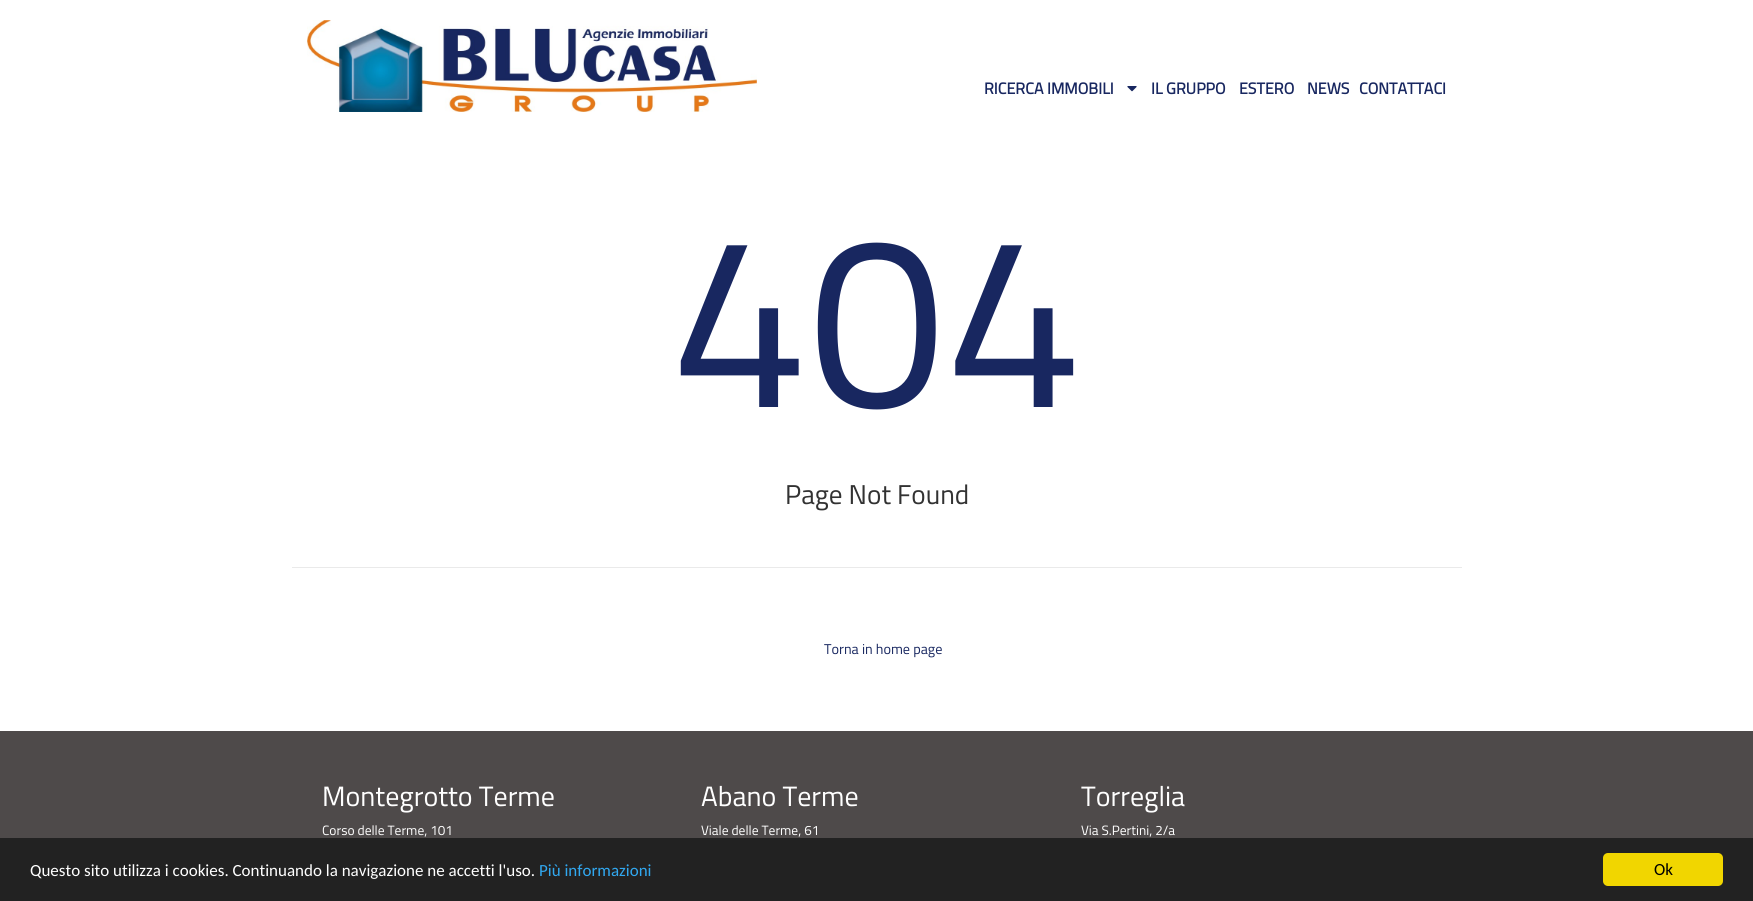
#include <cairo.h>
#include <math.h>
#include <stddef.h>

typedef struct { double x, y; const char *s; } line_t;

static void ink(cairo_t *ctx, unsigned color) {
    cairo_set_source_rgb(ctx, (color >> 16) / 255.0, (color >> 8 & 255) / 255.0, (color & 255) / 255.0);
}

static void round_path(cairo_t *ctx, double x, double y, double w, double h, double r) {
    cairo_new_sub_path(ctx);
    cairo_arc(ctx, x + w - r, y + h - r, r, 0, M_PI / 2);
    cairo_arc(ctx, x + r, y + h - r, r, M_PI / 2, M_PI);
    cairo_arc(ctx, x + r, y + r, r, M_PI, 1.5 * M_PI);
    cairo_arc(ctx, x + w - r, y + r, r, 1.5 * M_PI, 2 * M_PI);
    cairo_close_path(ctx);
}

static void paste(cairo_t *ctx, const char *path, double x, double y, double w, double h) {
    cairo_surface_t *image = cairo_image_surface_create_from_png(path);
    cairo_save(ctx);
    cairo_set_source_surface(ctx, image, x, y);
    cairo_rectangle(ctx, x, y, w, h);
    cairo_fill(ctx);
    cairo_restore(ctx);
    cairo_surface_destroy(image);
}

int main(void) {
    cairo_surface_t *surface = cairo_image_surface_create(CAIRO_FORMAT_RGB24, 1753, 901);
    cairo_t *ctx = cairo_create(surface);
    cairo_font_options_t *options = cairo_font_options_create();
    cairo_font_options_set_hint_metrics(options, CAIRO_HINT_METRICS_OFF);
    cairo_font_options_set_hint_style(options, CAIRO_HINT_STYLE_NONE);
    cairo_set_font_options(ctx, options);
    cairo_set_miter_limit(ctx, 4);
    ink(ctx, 0xFFFFFF);
    cairo_paint(ctx);
    paste(ctx, "media/1.png", 307, 20, 450, 92);
    cairo_select_font_face(ctx, "Titillium Web", CAIRO_FONT_SLANT_NORMAL, CAIRO_FONT_WEIGHT_BOLD);
    cairo_set_font_size(ctx, 16);
    ink(ctx, 0x182760);
    cairo_move_to(ctx, 984, 94);
    cairo_show_text(ctx, "RICERCA IMMOBILI");
    paste(ctx, "media/2.png", 1127, 86, 10, 6);
    {
        static const line_t items[] = {
            {1151, 94, "IL GRUPPO"},
            {1239, 94, "ESTERO"},
            {1307, 94, "NEWS"},
            {1359, 94, "CONTATTACI"},
        };
        for (size_t i = 0; i < sizeof items / sizeof *items; i++) {
            cairo_move_to(ctx, items[i].x, items[i].y);
            cairo_show_text(ctx, items[i].s);
        }
    }
    cairo_select_font_face(ctx, "Titillium Web", CAIRO_FONT_SLANT_NORMAL, CAIRO_FONT_WEIGHT_NORMAL);
    cairo_set_font_size(ctx, 245);
    cairo_move_to(ctx, 671, 407);
    cairo_show_text(ctx, "404");
    cairo_set_font_size(ctx, 27.25);
    ink(ctx, 0x323232);
    cairo_move_to(ctx, 785, 504);
    cairo_show_text(ctx, "Page Not Found");
    ink(ctx, 0xEAEAEA);
    cairo_rectangle(ctx, 292, 567, 1170, 1);
    cairo_fill(ctx);
    cairo_set_font_size(ctx, 14.25);
    ink(ctx, 0x182760);
    cairo_move_to(ctx, 824, 654);
    cairo_show_text(ctx, "Torna in home page");
    ink(ctx, 0x4E4A4A);
    cairo_rectangle(ctx, 0, 731, 1753, 107);
    cairo_fill(ctx);
    cairo_set_font_size(ctx, 28);
    ink(ctx, 0xFFFFFF);
    cairo_move_to(ctx, 322, 806);
    cairo_show_text(ctx, "Montegrotto Terme");
    cairo_set_font_size(ctx, 13.5);
    cairo_move_to(ctx, 322, 835);
    cairo_show_text(ctx, "Corso delle Terme, 101");
    cairo_set_font_size(ctx, 28);
    cairo_move_to(ctx, 701, 806);
    cairo_show_text(ctx, "Abano Terme");
    cairo_set_font_size(ctx, 13.5);
    cairo_move_to(ctx, 701, 835);
    cairo_show_text(ctx, "Viale delle Terme, 61");
    cairo_set_font_size(ctx, 28);
    cairo_move_to(ctx, 1081, 806);
    cairo_show_text(ctx, "Torreglia");
    cairo_set_font_size(ctx, 13.5);
    cairo_move_to(ctx, 1081, 835);
    cairo_show_text(ctx, "Via S.Pertini, 2/a");
    ink(ctx, 0x222222);
    cairo_rectangle(ctx, 0, 838, 1753, 63);
    cairo_fill(ctx);
    cairo_select_font_face(ctx, "Carlito", CAIRO_FONT_SLANT_NORMAL, CAIRO_FONT_WEIGHT_NORMAL);
    cairo_set_font_size(ctx, 17);
    ink(ctx, 0xFFFFFF);
    cairo_move_to(ctx, 30, 876);
    cairo_show_text(ctx, "Questo sito utilizza i cookies. Continuando la navigazione ne accetti l'uso.");
    ink(ctx, 0x31A8F0);
    cairo_move_to(ctx, 539, 876);
    cairo_show_text(ctx, "Più informazioni");
    ink(ctx, 0xF1D600);
    round_path(ctx, 1603, 853, 120, 33, 5);
    cairo_fill(ctx);
    ink(ctx, 0x000000);
    cairo_move_to(ctx, 1654, 875);
    cairo_show_text(ctx, "Ok");
    cairo_surface_write_to_png(surface, "image.png");
    cairo_font_options_destroy(options);
    cairo_destroy(ctx);
    cairo_surface_destroy(surface);
    return 0;
}
